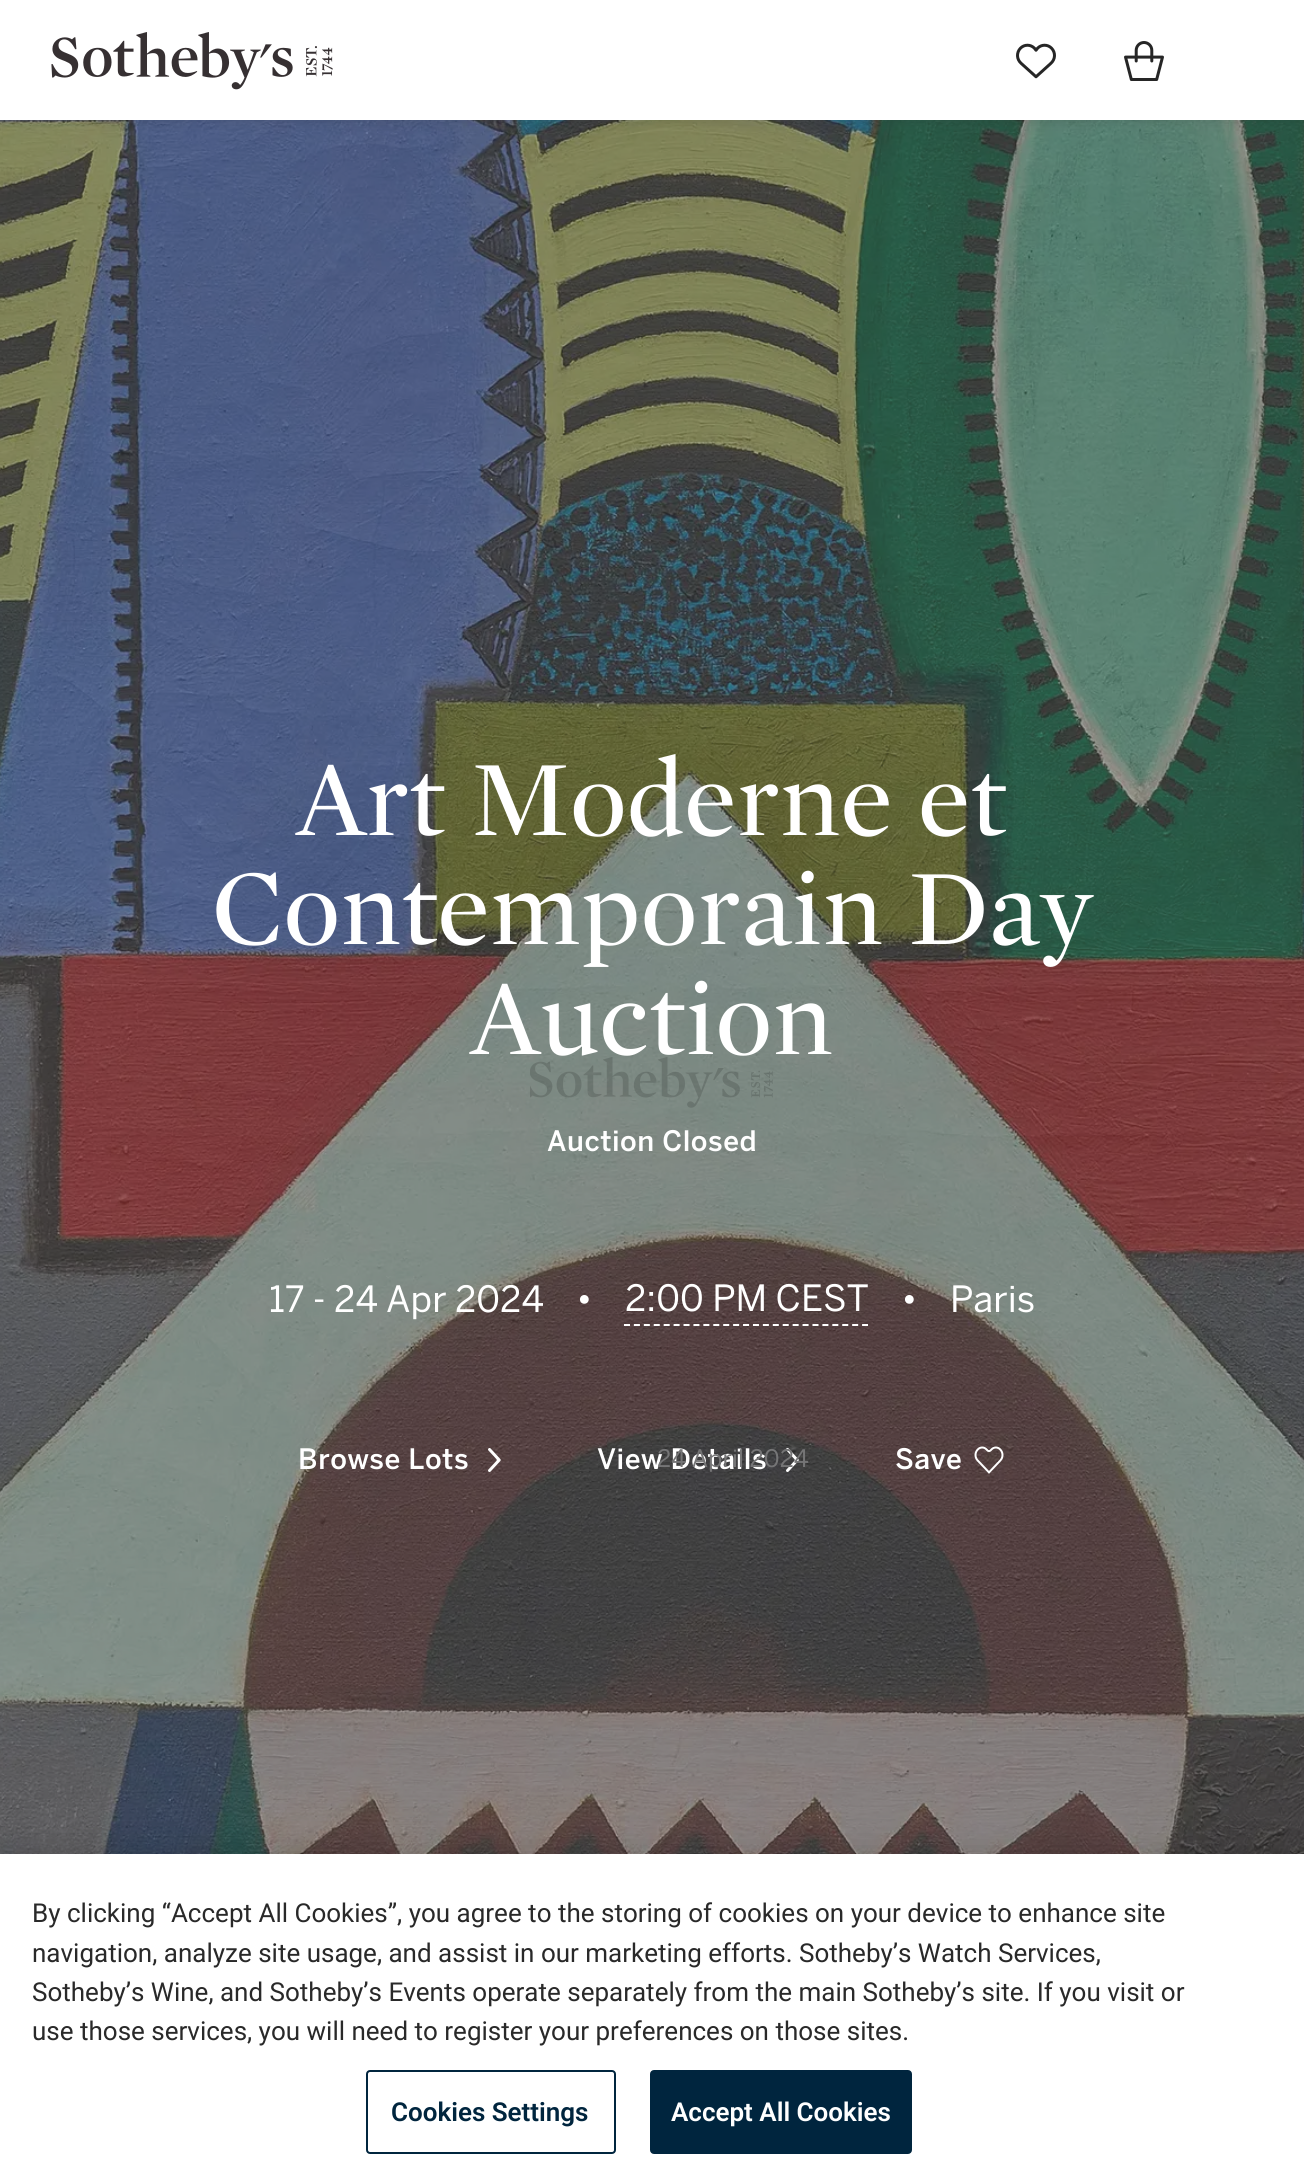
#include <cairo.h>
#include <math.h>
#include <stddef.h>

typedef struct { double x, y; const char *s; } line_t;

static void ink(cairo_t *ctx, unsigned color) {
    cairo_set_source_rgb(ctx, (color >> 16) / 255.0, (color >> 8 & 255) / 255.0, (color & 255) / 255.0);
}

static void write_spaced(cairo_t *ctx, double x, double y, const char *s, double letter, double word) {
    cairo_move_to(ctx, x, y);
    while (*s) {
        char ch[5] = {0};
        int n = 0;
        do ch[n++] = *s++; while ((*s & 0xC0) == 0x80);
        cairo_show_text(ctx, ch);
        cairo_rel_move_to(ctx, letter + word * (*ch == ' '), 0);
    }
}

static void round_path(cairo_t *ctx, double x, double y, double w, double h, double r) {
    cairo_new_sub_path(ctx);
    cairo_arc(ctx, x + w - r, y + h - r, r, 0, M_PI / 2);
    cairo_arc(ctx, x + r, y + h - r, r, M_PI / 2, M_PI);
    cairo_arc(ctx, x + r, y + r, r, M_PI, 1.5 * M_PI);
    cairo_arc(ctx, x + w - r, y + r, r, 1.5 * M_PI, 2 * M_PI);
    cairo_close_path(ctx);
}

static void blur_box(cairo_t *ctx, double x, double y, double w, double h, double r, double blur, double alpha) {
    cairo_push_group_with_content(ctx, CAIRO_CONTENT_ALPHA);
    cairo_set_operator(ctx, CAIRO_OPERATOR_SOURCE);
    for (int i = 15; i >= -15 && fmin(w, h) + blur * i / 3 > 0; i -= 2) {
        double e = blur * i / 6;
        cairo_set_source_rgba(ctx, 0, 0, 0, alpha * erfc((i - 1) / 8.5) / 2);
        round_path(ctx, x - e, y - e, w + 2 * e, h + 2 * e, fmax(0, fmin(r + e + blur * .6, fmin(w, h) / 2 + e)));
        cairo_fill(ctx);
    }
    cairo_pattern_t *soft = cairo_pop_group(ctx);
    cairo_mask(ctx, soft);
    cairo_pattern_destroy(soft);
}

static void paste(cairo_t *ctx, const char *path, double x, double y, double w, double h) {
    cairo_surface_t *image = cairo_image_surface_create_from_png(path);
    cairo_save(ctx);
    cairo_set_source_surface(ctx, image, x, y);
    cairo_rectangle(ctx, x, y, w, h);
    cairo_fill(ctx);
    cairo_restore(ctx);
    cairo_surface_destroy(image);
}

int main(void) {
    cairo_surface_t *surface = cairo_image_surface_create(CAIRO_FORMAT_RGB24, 1304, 2163);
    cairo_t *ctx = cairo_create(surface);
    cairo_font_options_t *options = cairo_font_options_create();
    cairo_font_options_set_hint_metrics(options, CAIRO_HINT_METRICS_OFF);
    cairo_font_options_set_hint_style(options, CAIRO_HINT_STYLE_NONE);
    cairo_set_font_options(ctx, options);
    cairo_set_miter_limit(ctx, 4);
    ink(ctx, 0xFFFFFF);
    cairo_paint(ctx);
    paste(ctx, "media/4.png", 0, 120, 1304, 1734);
    ink(ctx, 0x262626);
    blur_box(ctx, 0, 4, 1304, 120, 0, 4, 0.1);
    ink(ctx, 0xFFFFFF);
    cairo_rectangle(ctx, 0, 0, 1304, 120);
    cairo_fill(ctx);
    paste(ctx, "media/1.png", 51, 32, 282, 58);
    paste(ctx, "media/2.png", 1016, 43, 40, 36);
    paste(ctx, "media/3.png", 1124, 41, 40, 40);
    cairo_select_font_face(ctx, "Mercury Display", CAIRO_FONT_SLANT_NORMAL, CAIRO_FONT_WEIGHT_NORMAL);
    cairo_set_font_size(ctx, 109.25);
    {
        static const line_t items[] = {
            {297, 835, "Art Moderne et"},
            {212, 944, "Contemporain Day"},
            {471, 1054, "Auction"},
        };
        for (size_t i = 0; i < sizeof items / sizeof *items; i++) {
            cairo_move_to(ctx, items[i].x, items[i].y);
            cairo_show_text(ctx, items[i].s);
        }
    }
    cairo_select_font_face(ctx, "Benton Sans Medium", CAIRO_FONT_SLANT_NORMAL, CAIRO_FONT_WEIGHT_NORMAL);
    cairo_set_font_size(ctx, 28);
    write_spaced(ctx, 547, 1151, "Auction Closed", 0.5, 0);
    cairo_select_font_face(ctx, "Benton Sans", CAIRO_FONT_SLANT_NORMAL, CAIRO_FONT_WEIGHT_NORMAL);
    cairo_set_font_size(ctx, 36);
    cairo_move_to(ctx, 269, 1312);
    cairo_show_text(ctx, "17 - 24 Apr 2024");
    cairo_move_to(ctx, 576, 1312);
    cairo_show_text(ctx, "•");
    cairo_new_path(ctx);
    cairo_move_to(ctx, 624, 1325);
    cairo_line_to(ctx, 868, 1325);
    cairo_set_dash(ctx, (double[]){6, 3.92}, 2, 0);
    cairo_stroke(ctx);
    cairo_move_to(ctx, 625, 1311);
    cairo_show_text(ctx, "2:00 PM CEST");
    cairo_select_font_face(ctx, "Benton Sans Medium", CAIRO_FONT_SLANT_NORMAL, CAIRO_FONT_WEIGHT_NORMAL);
    cairo_set_font_size(ctx, 28);
    write_spaced(ctx, 597, 1469, "View Details", 0.5, 0);
    paste(ctx, "media/6.png", 786, 1448, 13, 24);
    cairo_select_font_face(ctx, "Benton Sans", CAIRO_FONT_SLANT_NORMAL, CAIRO_FONT_WEIGHT_NORMAL);
    cairo_set_font_size(ctx, 24);
    ink(ctx, 0x757576);
    cairo_move_to(ctx, 657, 1467);
    cairo_show_text(ctx, "24 April 2024");
    cairo_set_font_size(ctx, 36);
    ink(ctx, 0xFFFFFF);
    cairo_move_to(ctx, 901, 1312);
    cairo_show_text(ctx, "•");
    cairo_move_to(ctx, 950, 1312);
    cairo_show_text(ctx, "Paris");
    cairo_select_font_face(ctx, "Benton Sans Medium", CAIRO_FONT_SLANT_NORMAL, CAIRO_FONT_WEIGHT_NORMAL);
    cairo_set_font_size(ctx, 28);
    write_spaced(ctx, 298, 1469, "Browse Lots", 0.5, 0);
    paste(ctx, "media/5.png", 488, 1448, 13, 24);
    write_spaced(ctx, 895, 1469, "Save", 0.5, 0);
    paste(ctx, "media/7.png", 974, 1446, 30, 28);
    paste(ctx, "media/8.png", 530, 1057, 243, 51);
    ink(ctx, 0x000000);
    blur_box(ctx, 0, 1854, 1304, 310, 0, 18, 0.2);
    ink(ctx, 0xFFFFFF);
    cairo_rectangle(ctx, 0, 1854, 1304, 309);
    cairo_fill(ctx);
    cairo_select_font_face(ctx, "Roboto", CAIRO_FONT_SLANT_NORMAL, CAIRO_FONT_WEIGHT_NORMAL);
    cairo_set_font_size(ctx, 26);
    ink(ctx, 0x292929);
    {
        static const line_t items[] = {
            {32, 1922, "By clicking “Accept All Cookies”, you agree to the storing of cookies on your device to enhance site"},
            {32, 1962, "navigation, analyze site usage, and assist in our marketing efforts. Sotheby’s Watch Services,"},
            {32, 2001, "Sotheby’s Wine, and Sotheby’s Events operate separately from the main Sotheby’s site. If you visit or"},
            {32, 2040, "use those services, you will need to register your preferences on those sites."},
        };
        for (size_t i = 0; i < sizeof items / sizeof *items; i++) {
            cairo_move_to(ctx, items[i].x, items[i].y);
            cairo_show_text(ctx, items[i].s);
        }
    }
    round_path(ctx, 367, 2071, 248, 82, 3);
    ink(ctx, 0x00253E);
    cairo_set_dash(ctx, NULL, 0, 0);
    cairo_stroke(ctx);
    cairo_select_font_face(ctx, "Roboto SemiBold", CAIRO_FONT_SLANT_NORMAL, CAIRO_FONT_WEIGHT_NORMAL);
    cairo_move_to(ctx, 391, 2121);
    cairo_show_text(ctx, "Cookies Settings");
    round_path(ctx, 651, 2071, 260, 82, 3);
    cairo_fill_preserve(ctx);
    cairo_stroke(ctx);
    ink(ctx, 0xFFFFFF);
    cairo_move_to(ctx, 671, 2121);
    cairo_show_text(ctx, "Accept All Cookies");
    cairo_surface_write_to_png(surface, "image.png");
    cairo_font_options_destroy(options);
    cairo_destroy(ctx);
    cairo_surface_destroy(surface);
    return 0;
}
